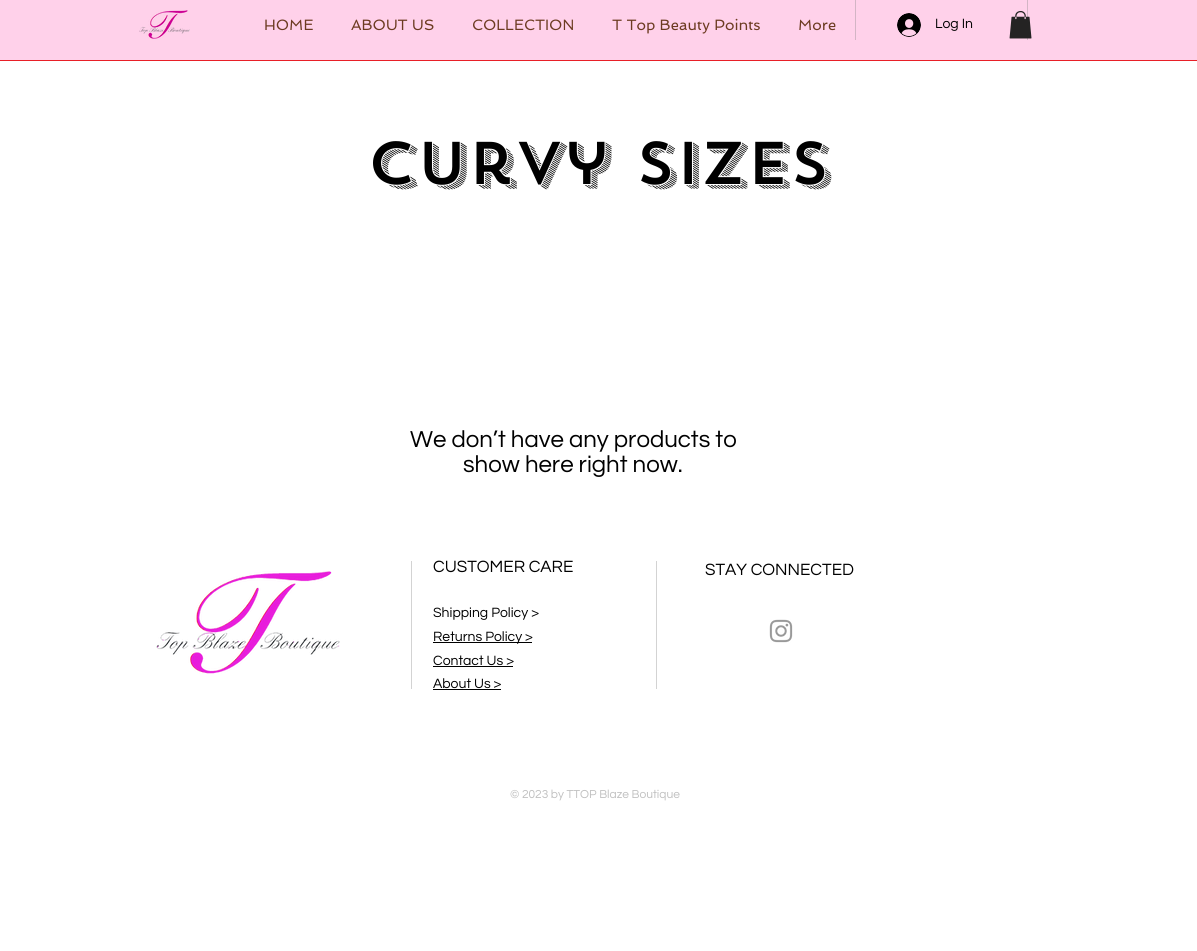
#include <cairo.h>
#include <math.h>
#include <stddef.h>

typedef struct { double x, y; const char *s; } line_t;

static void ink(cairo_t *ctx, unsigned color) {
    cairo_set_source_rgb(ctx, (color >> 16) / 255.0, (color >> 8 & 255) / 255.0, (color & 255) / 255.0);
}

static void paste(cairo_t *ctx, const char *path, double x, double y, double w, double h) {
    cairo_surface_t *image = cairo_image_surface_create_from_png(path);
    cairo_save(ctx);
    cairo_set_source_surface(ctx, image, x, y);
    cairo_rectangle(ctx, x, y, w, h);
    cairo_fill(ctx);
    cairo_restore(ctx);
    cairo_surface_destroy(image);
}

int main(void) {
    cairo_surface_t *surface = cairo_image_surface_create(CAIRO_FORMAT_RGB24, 1197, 951);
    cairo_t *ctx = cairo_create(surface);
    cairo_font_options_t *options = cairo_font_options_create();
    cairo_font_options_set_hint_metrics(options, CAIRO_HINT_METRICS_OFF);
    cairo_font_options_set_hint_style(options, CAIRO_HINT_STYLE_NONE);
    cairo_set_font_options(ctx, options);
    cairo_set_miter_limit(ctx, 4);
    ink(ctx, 0xFFFFFF);
    cairo_paint(ctx);
    ink(ctx, 0xFFD1EA);
    cairo_rectangle(ctx, 0, 0, 1197, 60);
    cairo_fill(ctx);
    paste(ctx, "media/1.png", 139, 10, 51, 29);
    ink(ctx, 0xD3B5C5);
    cairo_rectangle(ctx, 855, 0, 1, 40);
    cairo_fill(ctx);
    cairo_rectangle(ctx, 1027, 0, 1, 40);
    cairo_fill(ctx);
    cairo_select_font_face(ctx, "Spinnaker", CAIRO_FONT_SLANT_NORMAL, CAIRO_FONT_WEIGHT_NORMAL);
    cairo_set_font_size(ctx, 15);
    ink(ctx, 0x6C3B21);
    {
        static const line_t items[] = {
            {264, 30, "HOME"},
            {351, 30, "ABOUT US"},
            {472, 30, "COLLECTION"},
            {612, 30, "T Top Beauty Points"},
            {798, 30, "More"},
        };
        for (size_t i = 0; i < sizeof items / sizeof *items; i++) {
            cairo_move_to(ctx, items[i].x, items[i].y);
            cairo_show_text(ctx, items[i].s);
        }
    }
    paste(ctx, "media/2.png", 897, 13, 24, 24);
    cairo_select_font_face(ctx, "Questrial", CAIRO_FONT_SLANT_NORMAL, CAIRO_FONT_WEIGHT_NORMAL);
    cairo_set_font_size(ctx, 14);
    ink(ctx, 0x000000);
    cairo_move_to(ctx, 935, 28);
    cairo_show_text(ctx, "Log In");
    paste(ctx, "media/3.png", 1009, 11, 23, 28);
    ink(ctx, 0xE81F27);
    cairo_rectangle(ctx, 0, 60, 1197, 1);
    cairo_fill(ctx);
    cairo_select_font_face(ctx, "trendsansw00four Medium", CAIRO_FONT_SLANT_NORMAL, CAIRO_FONT_WEIGHT_NORMAL);
    cairo_set_font_size(ctx, 60);
    ink(ctx, 0x000000);
    cairo_move_to(ctx, 367, 184);
    cairo_show_text(ctx, "curvy sizes");
    cairo_select_font_face(ctx, "Questrial", CAIRO_FONT_SLANT_NORMAL, CAIRO_FONT_WEIGHT_NORMAL);
    cairo_set_font_size(ctx, 24);
    cairo_move_to(ctx, 410, 447);
    cairo_show_text(ctx, "We don’t have any products to");
    cairo_move_to(ctx, 463, 472);
    cairo_show_text(ctx, "show here right now.");
    ink(ctx, 0xD3D3D3);
    cairo_rectangle(ctx, 411, 561, 1, 128);
    cairo_fill(ctx);
    cairo_set_font_size(ctx, 17);
    ink(ctx, 0x000000);
    cairo_move_to(ctx, 433, 572);
    cairo_show_text(ctx, "CUSTOMER CARE");
    cairo_set_font_size(ctx, 14);
    cairo_move_to(ctx, 433, 617);
    cairo_show_text(ctx, "Shipping Policy >");
    cairo_rectangle(ctx, 433, 642, 99, 1);
    cairo_fill(ctx);
    cairo_move_to(ctx, 433, 641);
    cairo_show_text(ctx, "Returns Policy >");
    cairo_move_to(ctx, 433, 665);
    cairo_show_text(ctx, "Contact Us >");
    cairo_rectangle(ctx, 433, 666, 80, 1);
    cairo_fill(ctx);
    cairo_move_to(ctx, 433, 688);
    cairo_show_text(ctx, "About Us >");
    cairo_rectangle(ctx, 433, 689, 68, 1);
    cairo_fill(ctx);
    ink(ctx, 0xD3D3D3);
    cairo_rectangle(ctx, 656, 561, 1, 128);
    cairo_fill(ctx);
    cairo_set_font_size(ctx, 17);
    ink(ctx, 0x000000);
    cairo_move_to(ctx, 705, 575);
    cairo_show_text(ctx, "STAY CONNECTED");
    paste(ctx, "media/4.png", 156, 571, 184, 103);
    paste(ctx, "media/5.png", 769, 619, 24, 24);
    cairo_set_font_size(ctx, 12);
    ink(ctx, 0xBFBFBF);
    cairo_move_to(ctx, 510, 798);
    cairo_show_text(ctx, "© 2023 by TTOP Blaze Boutique");
    cairo_surface_write_to_png(surface, "image.png");
    cairo_font_options_destroy(options);
    cairo_destroy(ctx);
    cairo_surface_destroy(surface);
    return 0;
}
